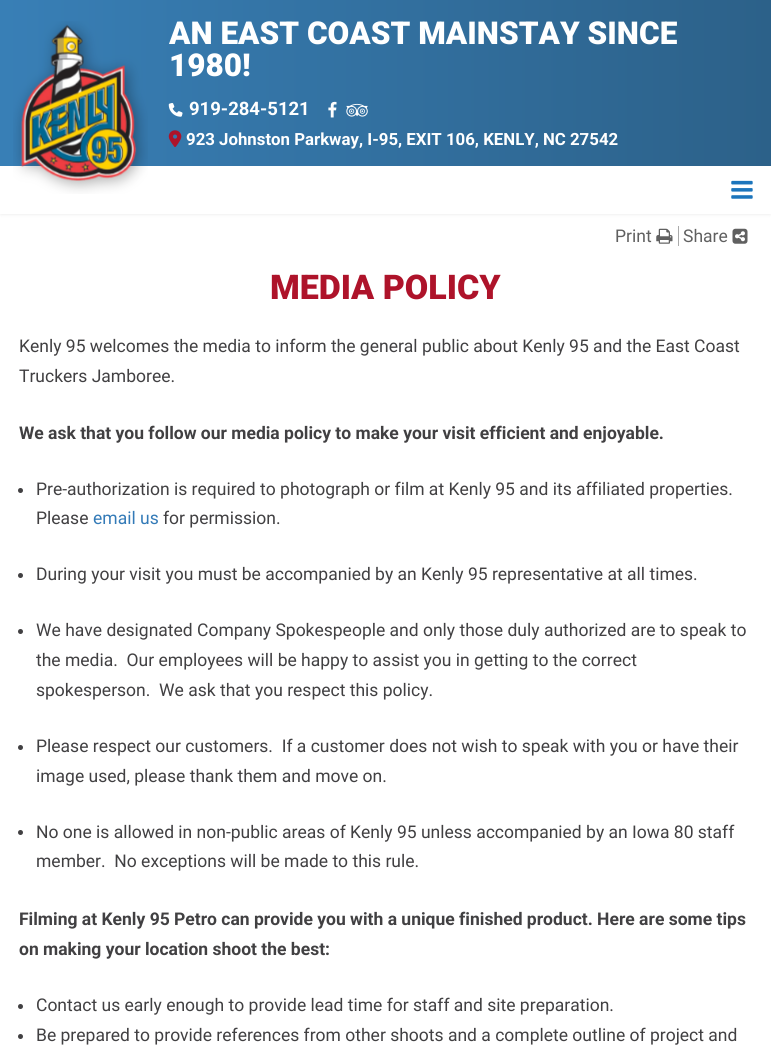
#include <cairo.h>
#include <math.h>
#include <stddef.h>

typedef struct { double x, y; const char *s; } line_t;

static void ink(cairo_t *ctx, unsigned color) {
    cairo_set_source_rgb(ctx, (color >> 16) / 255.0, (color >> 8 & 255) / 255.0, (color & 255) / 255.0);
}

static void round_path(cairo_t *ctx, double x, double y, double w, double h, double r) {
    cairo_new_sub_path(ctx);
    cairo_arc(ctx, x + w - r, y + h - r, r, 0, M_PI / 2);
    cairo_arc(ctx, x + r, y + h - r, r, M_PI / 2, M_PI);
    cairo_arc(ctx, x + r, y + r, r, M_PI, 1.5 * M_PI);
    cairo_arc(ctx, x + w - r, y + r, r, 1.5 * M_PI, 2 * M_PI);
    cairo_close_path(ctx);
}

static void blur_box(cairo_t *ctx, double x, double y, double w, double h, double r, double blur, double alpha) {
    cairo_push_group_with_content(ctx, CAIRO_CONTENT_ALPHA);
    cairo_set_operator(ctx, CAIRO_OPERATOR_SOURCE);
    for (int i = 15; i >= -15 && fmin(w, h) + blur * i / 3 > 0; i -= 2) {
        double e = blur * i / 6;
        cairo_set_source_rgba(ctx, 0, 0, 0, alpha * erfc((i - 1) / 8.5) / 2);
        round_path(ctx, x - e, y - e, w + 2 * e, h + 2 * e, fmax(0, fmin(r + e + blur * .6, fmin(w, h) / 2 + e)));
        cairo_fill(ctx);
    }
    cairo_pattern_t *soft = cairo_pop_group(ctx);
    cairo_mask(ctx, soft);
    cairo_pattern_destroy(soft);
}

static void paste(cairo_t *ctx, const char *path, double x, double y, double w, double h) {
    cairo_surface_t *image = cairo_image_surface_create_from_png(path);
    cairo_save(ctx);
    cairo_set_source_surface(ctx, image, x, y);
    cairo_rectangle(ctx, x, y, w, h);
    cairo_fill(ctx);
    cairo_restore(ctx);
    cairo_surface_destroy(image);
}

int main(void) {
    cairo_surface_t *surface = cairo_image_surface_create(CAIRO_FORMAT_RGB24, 771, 1062);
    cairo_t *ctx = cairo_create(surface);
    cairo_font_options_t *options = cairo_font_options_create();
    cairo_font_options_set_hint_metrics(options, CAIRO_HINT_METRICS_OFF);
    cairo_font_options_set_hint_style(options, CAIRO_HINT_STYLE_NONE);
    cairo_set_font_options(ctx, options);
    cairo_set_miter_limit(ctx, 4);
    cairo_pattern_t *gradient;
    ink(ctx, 0xFFFFFF);
    cairo_paint(ctx);
    ink(ctx, 0x000000);
    blur_box(ctx, 1, 3, 769, 211, 0, 2, 0.1);
    gradient = cairo_pattern_create_linear(0, 83, 771, 83);
    cairo_pattern_add_color_stop_rgba(gradient, 0, 0.22, 0.498, 0.714, 1);
    cairo_pattern_add_color_stop_rgba(gradient, 1, 0.173, 0.38, 0.537, 1);
    cairo_set_source(ctx, gradient);
    cairo_pattern_destroy(gradient);
    cairo_rectangle(ctx, 0, 0, 771, 166);
    cairo_fill(ctx);
    ink(ctx, 0xFFFFFF);
    cairo_rectangle(ctx, 0, 166, 771, 48);
    cairo_fill(ctx);
    paste(ctx, "media/1.png", 13, 21, 135, 173);
    cairo_select_font_face(ctx, "Roboto Black", CAIRO_FONT_SLANT_NORMAL, CAIRO_FONT_WEIGHT_NORMAL);
    cairo_set_font_size(ctx, 31.5);
    cairo_move_to(ctx, 169, 44);
    cairo_show_text(ctx, "AN EAST COAST MAINSTAY SINCE");
    cairo_move_to(ctx, 169, 76);
    cairo_show_text(ctx, "1980!");
    paste(ctx, "media/2.png", 168, 103, 15, 14);
    cairo_select_font_face(ctx, "Roboto", CAIRO_FONT_SLANT_NORMAL, CAIRO_FONT_WEIGHT_BOLD);
    cairo_set_font_size(ctx, 18.5);
    cairo_move_to(ctx, 189, 115);
    cairo_show_text(ctx, "919-284-5121");
    paste(ctx, "media/3.png", 328, 101, 9, 17);
    paste(ctx, "media/4.png", 346, 103, 22, 14);
    paste(ctx, "media/5.png", 168, 130, 14, 17);
    cairo_set_font_size(ctx, 16.8);
    cairo_move_to(ctx, 186, 145);
    cairo_show_text(ctx, "923 Johnston Parkway, I-95, EXIT 106, KENLY, NC 27542");
    paste(ctx, "media/6.png", 731, 180, 22, 19);
    ink(ctx, 0xAAAAAA);
    cairo_rectangle(ctx, 678, 226, 1, 20);
    cairo_fill(ctx);
    cairo_select_font_face(ctx, "Roboto", CAIRO_FONT_SLANT_NORMAL, CAIRO_FONT_WEIGHT_NORMAL);
    cairo_set_font_size(ctx, 17.5);
    ink(ctx, 0x606060);
    cairo_move_to(ctx, 615, 242);
    cairo_show_text(ctx, "Print");
    paste(ctx, "media/7.png", 656, 228, 17, 16);
    cairo_move_to(ctx, 683, 242);
    cairo_show_text(ctx, "Share");
    paste(ctx, "media/8.png", 732, 228, 16, 16);
    cairo_select_font_face(ctx, "Roboto Black", CAIRO_FONT_SLANT_NORMAL, CAIRO_FONT_WEIGHT_NORMAL);
    cairo_set_font_size(ctx, 34);
    ink(ctx, 0xAE132A);
    cairo_move_to(ctx, 270, 299);
    cairo_show_text(ctx, "MEDIA POLICY");
    cairo_select_font_face(ctx, "Roboto", CAIRO_FONT_SLANT_NORMAL, CAIRO_FONT_WEIGHT_NORMAL);
    cairo_set_font_size(ctx, 17.5);
    ink(ctx, 0x414042);
    cairo_move_to(ctx, 19, 352);
    cairo_show_text(ctx, "Kenly 95 welcomes the media to inform the general public about Kenly 95 and the East Coast");
    cairo_move_to(ctx, 19, 382);
    cairo_show_text(ctx, "Truckers Jamboree.");
    cairo_select_font_face(ctx, "Roboto", CAIRO_FONT_SLANT_NORMAL, CAIRO_FONT_WEIGHT_BOLD);
    cairo_move_to(ctx, 19, 439);
    cairo_show_text(ctx, "We ask that you follow our media policy to make your visit efficient and enjoyable.");
    cairo_new_path(ctx);
    cairo_arc(ctx, 20.5, 490.5, 2.5, 0, 2 * M_PI);
    cairo_fill(ctx);
    cairo_select_font_face(ctx, "Roboto", CAIRO_FONT_SLANT_NORMAL, CAIRO_FONT_WEIGHT_NORMAL);
    cairo_move_to(ctx, 36, 495);
    cairo_show_text(ctx, "Pre-authorization is required to photograph or film at Kenly 95 and its affiliated properties.");
    cairo_move_to(ctx, 36, 524);
    cairo_show_text(ctx, "Please");
    ink(ctx, 0x337AB7);
    cairo_move_to(ctx, 93, 524);
    cairo_show_text(ctx, "email us");
    ink(ctx, 0x414042);
    cairo_move_to(ctx, 163, 524);
    cairo_show_text(ctx, "for permission.");
    cairo_new_path(ctx);
    cairo_arc(ctx, 20.5, 575.5, 2.5, 0, 2 * M_PI);
    cairo_fill(ctx);
    cairo_move_to(ctx, 36, 580);
    cairo_show_text(ctx, "During your visit you must be accompanied by an Kenly 95 representative at all times.");
    cairo_new_path(ctx);
    cairo_arc(ctx, 20.5, 631.5, 2.5, 0, 2 * M_PI);
    cairo_fill(ctx);
    {
        static const line_t items[] = {
            {36, 636, "We have designated Company Spokespeople and only those duly authorized are to speak to"},
            {36, 666, "the media.  Our employees will be happy to assist you in getting to the correct"},
            {36, 696, "spokesperson.  We ask that you respect this policy."},
        };
        for (size_t i = 0; i < sizeof items / sizeof *items; i++) {
            cairo_move_to(ctx, items[i].x, items[i].y);
            cairo_show_text(ctx, items[i].s);
        }
    }
    cairo_new_path(ctx);
    cairo_arc(ctx, 20.5, 747.5, 2.5, 0, 2 * M_PI);
    cairo_fill(ctx);
    cairo_move_to(ctx, 36, 752);
    cairo_show_text(ctx, "Please respect our customers.  If a customer does not wish to speak with you or have their");
    cairo_move_to(ctx, 36, 782);
    cairo_show_text(ctx, "image used, please thank them and move on.");
    cairo_new_path(ctx);
    cairo_arc(ctx, 20.5, 832.5, 2.5, 0, 2 * M_PI);
    cairo_fill(ctx);
    cairo_move_to(ctx, 36, 838);
    cairo_show_text(ctx, "No one is allowed in non-public areas of Kenly 95 unless accompanied by an Iowa 80 staff");
    cairo_move_to(ctx, 36, 867);
    cairo_show_text(ctx, "member.  No exceptions will be made to this rule.");
    cairo_select_font_face(ctx, "Roboto", CAIRO_FONT_SLANT_NORMAL, CAIRO_FONT_WEIGHT_BOLD);
    cairo_move_to(ctx, 19, 925);
    cairo_show_text(ctx, "Filming at Kenly 95 Petro can provide you with a unique finished product. Here are some tips");
    cairo_move_to(ctx, 19, 955);
    cairo_show_text(ctx, "on making your location shoot the best:");
    cairo_new_path(ctx);
    cairo_arc(ctx, 20.5, 1006.5, 2.5, 0, 2 * M_PI);
    cairo_fill(ctx);
    cairo_select_font_face(ctx, "Roboto", CAIRO_FONT_SLANT_NORMAL, CAIRO_FONT_WEIGHT_NORMAL);
    cairo_move_to(ctx, 36, 1011);
    cairo_show_text(ctx, "Contact us early enough to provide lead time for staff and site preparation.");
    cairo_new_path(ctx);
    cairo_arc(ctx, 20.5, 1036.5, 2.5, 0, 2 * M_PI);
    cairo_fill(ctx);
    cairo_move_to(ctx, 36, 1041);
    cairo_show_text(ctx, "Be prepared to provide references from other shoots and a complete outline of project and");
    cairo_surface_write_to_png(surface, "image.png");
    cairo_font_options_destroy(options);
    cairo_destroy(ctx);
    cairo_surface_destroy(surface);
    return 0;
}
